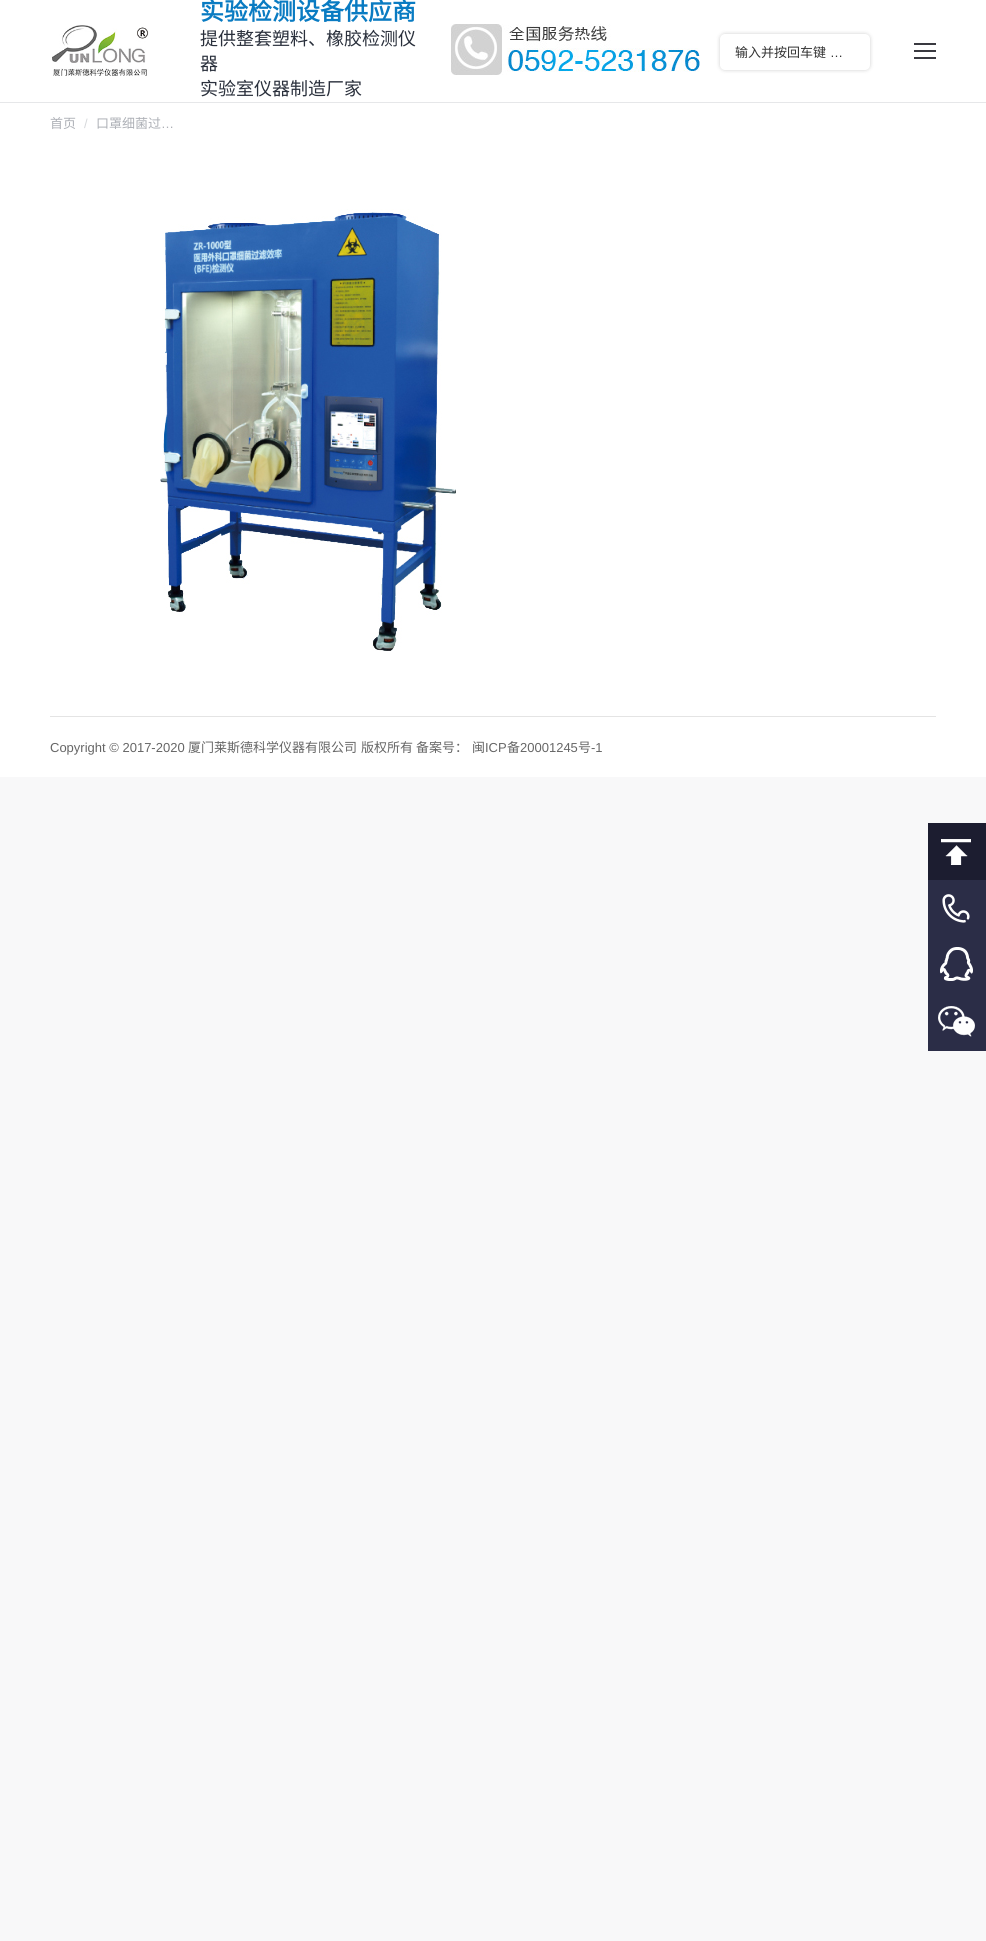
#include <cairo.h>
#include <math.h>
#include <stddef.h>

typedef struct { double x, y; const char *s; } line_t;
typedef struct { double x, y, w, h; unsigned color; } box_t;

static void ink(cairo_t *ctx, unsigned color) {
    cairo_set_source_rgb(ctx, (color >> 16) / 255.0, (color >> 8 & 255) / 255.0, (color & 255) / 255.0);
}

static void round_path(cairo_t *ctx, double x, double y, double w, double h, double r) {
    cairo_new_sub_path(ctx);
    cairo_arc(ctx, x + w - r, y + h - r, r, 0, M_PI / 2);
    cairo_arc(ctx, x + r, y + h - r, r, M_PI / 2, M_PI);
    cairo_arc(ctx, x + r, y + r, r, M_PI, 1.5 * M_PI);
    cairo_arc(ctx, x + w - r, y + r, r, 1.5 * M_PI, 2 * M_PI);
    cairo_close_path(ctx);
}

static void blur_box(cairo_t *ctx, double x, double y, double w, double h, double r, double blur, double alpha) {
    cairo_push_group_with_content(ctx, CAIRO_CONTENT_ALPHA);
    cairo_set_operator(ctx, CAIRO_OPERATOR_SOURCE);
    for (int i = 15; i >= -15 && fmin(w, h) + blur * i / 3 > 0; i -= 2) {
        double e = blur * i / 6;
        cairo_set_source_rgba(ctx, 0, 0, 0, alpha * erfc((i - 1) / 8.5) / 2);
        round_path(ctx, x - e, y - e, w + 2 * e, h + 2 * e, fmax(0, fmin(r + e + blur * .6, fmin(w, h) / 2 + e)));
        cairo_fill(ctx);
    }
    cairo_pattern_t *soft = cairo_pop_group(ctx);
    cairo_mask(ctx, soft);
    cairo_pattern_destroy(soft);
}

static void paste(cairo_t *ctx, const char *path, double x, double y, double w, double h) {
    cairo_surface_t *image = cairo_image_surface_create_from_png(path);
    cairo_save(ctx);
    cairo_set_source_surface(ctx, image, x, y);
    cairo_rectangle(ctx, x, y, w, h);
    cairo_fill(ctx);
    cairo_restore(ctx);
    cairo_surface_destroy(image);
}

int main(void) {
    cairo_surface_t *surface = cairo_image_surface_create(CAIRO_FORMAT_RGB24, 986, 1941);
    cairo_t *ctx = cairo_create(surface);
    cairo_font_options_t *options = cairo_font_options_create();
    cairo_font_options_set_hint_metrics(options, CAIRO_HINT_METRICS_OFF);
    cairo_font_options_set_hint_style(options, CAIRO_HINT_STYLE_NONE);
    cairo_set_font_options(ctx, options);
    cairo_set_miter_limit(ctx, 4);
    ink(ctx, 0xF8F8F9);
    cairo_paint(ctx);
    ink(ctx, 0xFFFFFF);
    cairo_rectangle(ctx, 0, 0, 986, 777);
    cairo_fill(ctx);
    ink(ctx, 0xE6E7E9);
    cairo_rectangle(ctx, 0, 102, 986, 1);
    cairo_fill(ctx);
    paste(ctx, "media/1.png", 52, 25, 97, 51);
    cairo_select_font_face(ctx, "Noto Sans CJK SC", CAIRO_FONT_SLANT_NORMAL, CAIRO_FONT_WEIGHT_BOLD);
    cairo_set_font_size(ctx, 24);
    ink(ctx, 0x097BC2);
    cairo_move_to(ctx, 200, 20);
    cairo_show_text(ctx, "实验检测设备供应商");
    cairo_select_font_face(ctx, "Noto Sans CJK SC", CAIRO_FONT_SLANT_NORMAL, CAIRO_FONT_WEIGHT_NORMAL);
    cairo_set_font_size(ctx, 18);
    ink(ctx, 0x2A303C);
    {
        static const line_t items[] = {
            {200, 45, "提供整套塑料、橡胶检测仪"},
            {200, 70, "器"},
            {200, 95, "实验室仪器制造厂家"},
        };
        for (size_t i = 0; i < sizeof items / sizeof *items; i++) {
            cairo_move_to(ctx, items[i].x, items[i].y);
            cairo_show_text(ctx, items[i].s);
        }
    }
    paste(ctx, "media/2.png", 451, 24, 249, 51);
    ink(ctx, 0x000000);
    blur_box(ctx, 720, 34, 150, 36, 5, 2, 0.2);
    ink(ctx, 0xFFFFFF);
    round_path(ctx, 720, 34, 150, 36, 5);
    cairo_fill(ctx);
    cairo_set_font_size(ctx, 13);
    ink(ctx, 0x333333);
    cairo_move_to(ctx, 735, 57);
    cairo_show_text(ctx, "输入并按回车键");
    cairo_select_font_face(ctx, "Liberation Sans", CAIRO_FONT_SLANT_NORMAL, CAIRO_FONT_WEIGHT_NORMAL);
    cairo_move_to(ctx, 830, 57);
    cairo_show_text(ctx, "…");
    {
        static const box_t items[] = {
            {914, 50, 22, 2, 0x393940},
            {914, 43, 22, 2, 0x393940},
            {914, 57, 22, 2, 0x393940},
        };
        for (size_t i = 0; i < sizeof items / sizeof *items; i++) {
            ink(ctx, items[i].color);
            cairo_rectangle(ctx, items[i].x, items[i].y, items[i].w, items[i].h);
            cairo_fill(ctx);
        }
    }
    cairo_select_font_face(ctx, "Noto Sans CJK SC", CAIRO_FONT_SLANT_NORMAL, CAIRO_FONT_WEIGHT_NORMAL);
    ink(ctx, 0xADB0B6);
    cairo_move_to(ctx, 50, 128);
    cairo_show_text(ctx, "首页");
    cairo_select_font_face(ctx, "Liberation Sans", CAIRO_FONT_SLANT_NORMAL, CAIRO_FONT_WEIGHT_NORMAL);
    ink(ctx, 0xD6D8DB);
    cairo_move_to(ctx, 84, 128);
    cairo_show_text(ctx, "/");
    cairo_select_font_face(ctx, "Noto Sans CJK SC", CAIRO_FONT_SLANT_NORMAL, CAIRO_FONT_WEIGHT_NORMAL);
    ink(ctx, 0xADB0B6);
    cairo_move_to(ctx, 96, 128);
    cairo_show_text(ctx, "口罩细菌过");
    cairo_select_font_face(ctx, "Liberation Sans", CAIRO_FONT_SLANT_NORMAL, CAIRO_FONT_WEIGHT_NORMAL);
    cairo_move_to(ctx, 161, 128);
    cairo_show_text(ctx, "…");
    paste(ctx, "media/3.png", 160, 209, 296, 442);
    ink(ctx, 0xE4E4E4);
    cairo_rectangle(ctx, 50, 716, 886, 1);
    cairo_fill(ctx);
    ink(ctx, 0x666666);
    cairo_move_to(ctx, 50, 752);
    cairo_show_text(ctx, "Copyright © 2017-2020");
    cairo_select_font_face(ctx, "Noto Sans CJK SC", CAIRO_FONT_SLANT_NORMAL, CAIRO_FONT_WEIGHT_NORMAL);
    {
        static const line_t items[] = {
            {188, 752, "厦门莱斯德科学仪器有限公司"},
            {361, 752, "版权所有"},
            {416, 752, "备案号："},
            {472, 752, "闽"},
        };
        for (size_t i = 0; i < sizeof items / sizeof *items; i++) {
            cairo_move_to(ctx, items[i].x, items[i].y);
            cairo_show_text(ctx, items[i].s);
        }
    }
    cairo_select_font_face(ctx, "Liberation Sans", CAIRO_FONT_SLANT_NORMAL, CAIRO_FONT_WEIGHT_NORMAL);
    cairo_move_to(ctx, 485, 752);
    cairo_show_text(ctx, "ICP");
    cairo_select_font_face(ctx, "Noto Sans CJK SC", CAIRO_FONT_SLANT_NORMAL, CAIRO_FONT_WEIGHT_NORMAL);
    cairo_move_to(ctx, 507, 752);
    cairo_show_text(ctx, "备");
    cairo_select_font_face(ctx, "Liberation Sans", CAIRO_FONT_SLANT_NORMAL, CAIRO_FONT_WEIGHT_NORMAL);
    cairo_move_to(ctx, 520, 752);
    cairo_show_text(ctx, "20001245");
    cairo_select_font_face(ctx, "Noto Sans CJK SC", CAIRO_FONT_SLANT_NORMAL, CAIRO_FONT_WEIGHT_NORMAL);
    cairo_move_to(ctx, 578, 752);
    cairo_show_text(ctx, "号");
    cairo_select_font_face(ctx, "Liberation Sans", CAIRO_FONT_SLANT_NORMAL, CAIRO_FONT_WEIGHT_NORMAL);
    cairo_move_to(ctx, 591, 752);
    cairo_show_text(ctx, "-1");
    paste(ctx, "media/4.png", 928, 823, 58, 57);
    paste(ctx, "media/5.png", 928, 880, 58, 57);
    paste(ctx, "media/6.png", 928, 937, 58, 57);
    paste(ctx, "media/7.png", 928, 994, 58, 57);
    cairo_surface_write_to_png(surface, "image.png");
    cairo_font_options_destroy(options);
    cairo_destroy(ctx);
    cairo_surface_destroy(surface);
    return 0;
}
